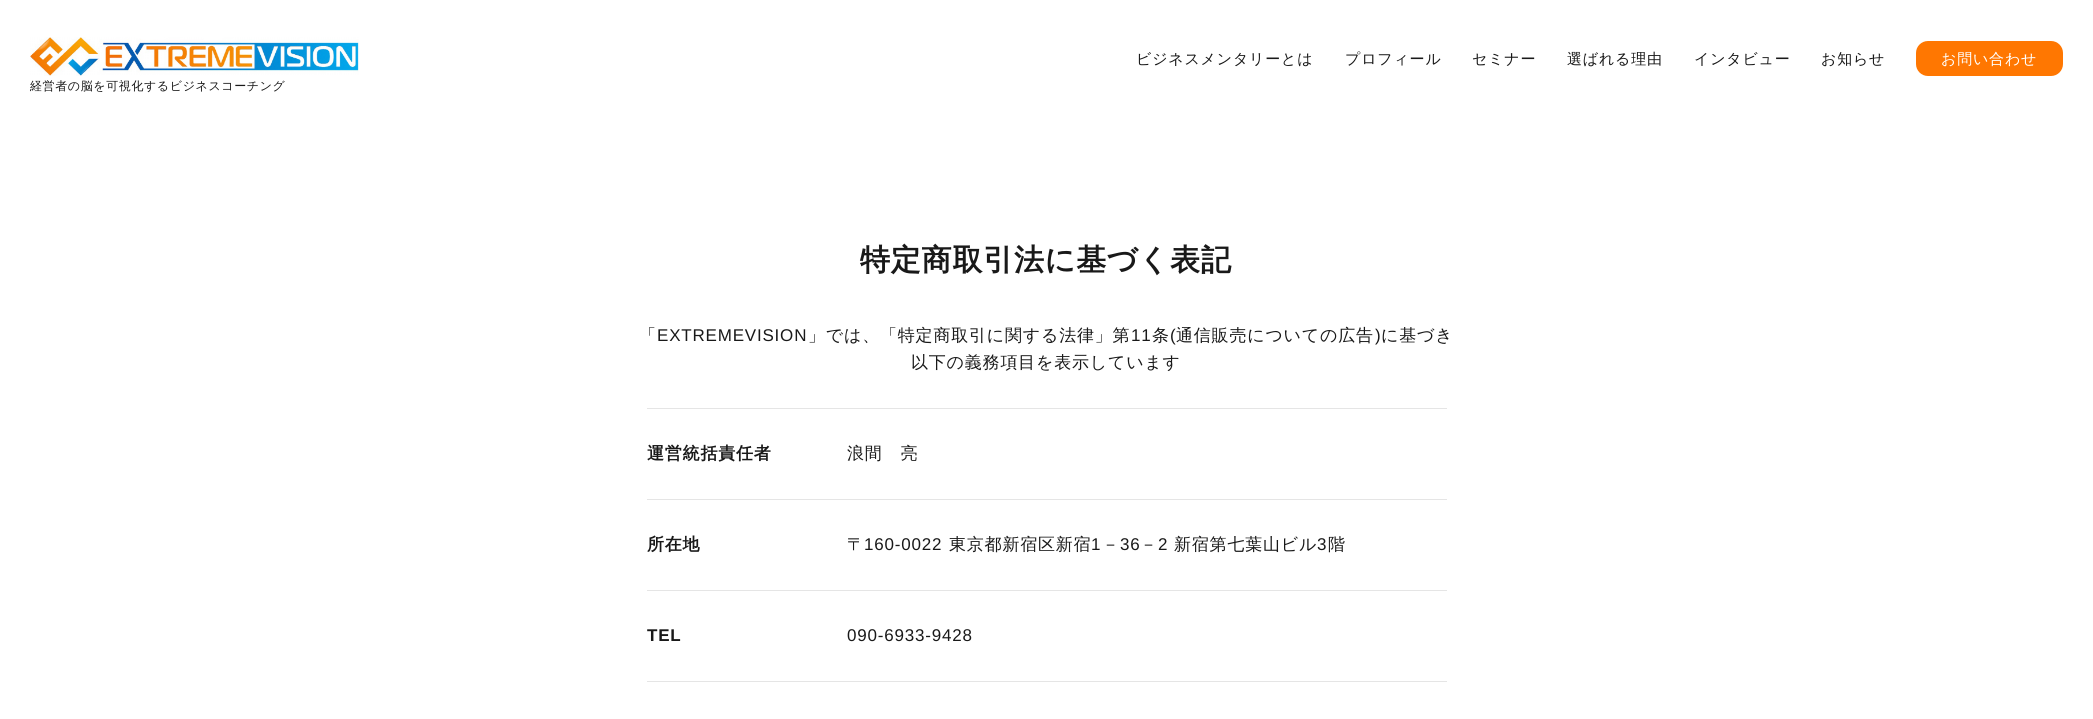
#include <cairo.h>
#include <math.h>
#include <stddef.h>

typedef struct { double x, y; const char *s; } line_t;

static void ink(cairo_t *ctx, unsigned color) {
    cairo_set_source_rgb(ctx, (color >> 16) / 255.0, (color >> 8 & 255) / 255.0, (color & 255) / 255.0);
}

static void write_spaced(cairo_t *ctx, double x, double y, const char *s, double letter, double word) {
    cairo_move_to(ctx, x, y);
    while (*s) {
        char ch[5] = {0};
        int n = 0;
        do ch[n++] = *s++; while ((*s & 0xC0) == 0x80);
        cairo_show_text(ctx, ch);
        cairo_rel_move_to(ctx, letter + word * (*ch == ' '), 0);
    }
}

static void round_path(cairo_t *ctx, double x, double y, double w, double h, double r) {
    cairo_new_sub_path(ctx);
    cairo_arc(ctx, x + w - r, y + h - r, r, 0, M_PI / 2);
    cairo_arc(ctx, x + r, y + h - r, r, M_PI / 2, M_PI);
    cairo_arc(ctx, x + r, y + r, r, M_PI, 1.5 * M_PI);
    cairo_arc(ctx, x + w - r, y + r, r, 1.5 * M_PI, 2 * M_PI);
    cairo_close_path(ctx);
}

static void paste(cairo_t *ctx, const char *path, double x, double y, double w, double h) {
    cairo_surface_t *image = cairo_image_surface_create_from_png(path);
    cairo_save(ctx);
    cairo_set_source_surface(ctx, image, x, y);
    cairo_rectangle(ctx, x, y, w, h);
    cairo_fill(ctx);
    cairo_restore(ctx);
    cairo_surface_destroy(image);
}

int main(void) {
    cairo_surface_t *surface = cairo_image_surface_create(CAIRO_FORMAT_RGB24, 2093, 719);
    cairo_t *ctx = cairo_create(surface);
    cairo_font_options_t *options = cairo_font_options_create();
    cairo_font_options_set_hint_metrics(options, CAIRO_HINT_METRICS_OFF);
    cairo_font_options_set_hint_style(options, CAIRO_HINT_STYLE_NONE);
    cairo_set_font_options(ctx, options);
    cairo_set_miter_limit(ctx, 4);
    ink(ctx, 0xFFFFFF);
    cairo_paint(ctx);
    cairo_select_font_face(ctx, "WenQuanYi Zen Hei Medium", CAIRO_FONT_SLANT_NORMAL, CAIRO_FONT_WEIGHT_NORMAL);
    cairo_set_font_size(ctx, 15);
    ink(ctx, 0x191919);
    {
        static const line_t items[] = {
            {1136, 64, "ビジネスメンタリーとは"},
            {1345, 64, "プロフィール"},
            {1472, 64, "セミナー"},
            {1567, 64, "選ばれる理由"},
            {1694, 64, "インタビュー"},
            {1821, 64, "お知らせ"},
        };
        for (size_t i = 0; i < sizeof items / sizeof *items; i++) {
            write_spaced(ctx, items[i].x, items[i].y, items[i].s, 0.8, 0);
        }
    }
    ink(ctx, 0xFF7701);
    round_path(ctx, 1916, 41, 147, 35, 12);
    cairo_fill(ctx);
    ink(ctx, 0xFFFFFF);
    write_spaced(ctx, 1941, 64, "お問い合わせ", 0.8, 0);
    paste(ctx, "media/1.png", 30, 37, 329, 39);
    cairo_set_font_size(ctx, 12);
    ink(ctx, 0x191919);
    write_spaced(ctx, 30, 90, "経営者の脳を可視化するビジネスコーチング", 0.6, 0);
    cairo_select_font_face(ctx, "WenQuanYi Zen Hei", CAIRO_FONT_SLANT_NORMAL, CAIRO_FONT_WEIGHT_BOLD);
    cairo_set_font_size(ctx, 30);
    write_spaced(ctx, 860, 270, "特定商取引法に基づく表記", 0.8, 0);
    cairo_select_font_face(ctx, "WenQuanYi Zen Hei Medium", CAIRO_FONT_SLANT_NORMAL, CAIRO_FONT_WEIGHT_NORMAL);
    cairo_set_font_size(ctx, 17);
    write_spaced(ctx, 639, 341, "「", 0.8, 0);
    cairo_select_font_face(ctx, "Liberation Sans", CAIRO_FONT_SLANT_NORMAL, CAIRO_FONT_WEIGHT_NORMAL);
    write_spaced(ctx, 657, 341, "EXTREMEVISION", 0.8, 0);
    cairo_select_font_face(ctx, "WenQuanYi Zen Hei Medium", CAIRO_FONT_SLANT_NORMAL, CAIRO_FONT_WEIGHT_NORMAL);
    write_spaced(ctx, 808, 341, "」では、「特定商取引に関する法律」第", 0.8, 0);
    cairo_select_font_face(ctx, "Liberation Sans", CAIRO_FONT_SLANT_NORMAL, CAIRO_FONT_WEIGHT_NORMAL);
    write_spaced(ctx, 1131, 341, "11", 0.8, 0);
    cairo_select_font_face(ctx, "WenQuanYi Zen Hei Medium", CAIRO_FONT_SLANT_NORMAL, CAIRO_FONT_WEIGHT_NORMAL);
    write_spaced(ctx, 1152, 341, "条", 0.8, 0);
    cairo_select_font_face(ctx, "Liberation Sans", CAIRO_FONT_SLANT_NORMAL, CAIRO_FONT_WEIGHT_NORMAL);
    write_spaced(ctx, 1170, 341, "(", 0.8, 0);
    cairo_select_font_face(ctx, "WenQuanYi Zen Hei Medium", CAIRO_FONT_SLANT_NORMAL, CAIRO_FONT_WEIGHT_NORMAL);
    write_spaced(ctx, 1176, 341, "通信販売についての広告", 0.8, 0);
    cairo_select_font_face(ctx, "Liberation Sans", CAIRO_FONT_SLANT_NORMAL, CAIRO_FONT_WEIGHT_NORMAL);
    write_spaced(ctx, 1375, 341, ")", 0.8, 0);
    cairo_select_font_face(ctx, "WenQuanYi Zen Hei Medium", CAIRO_FONT_SLANT_NORMAL, CAIRO_FONT_WEIGHT_NORMAL);
    write_spaced(ctx, 1381, 341, "に基づき", 0.8, 0);
    write_spaced(ctx, 911, 368, "以下の義務項目を表示しています", 0.8, 0);
    ink(ctx, 0xE5E5E5);
    cairo_rectangle(ctx, 647, 408, 800, 1);
    cairo_fill(ctx);
    cairo_rectangle(ctx, 647, 499, 800, 1);
    cairo_fill(ctx);
    cairo_select_font_face(ctx, "WenQuanYi Zen Hei", CAIRO_FONT_SLANT_NORMAL, CAIRO_FONT_WEIGHT_BOLD);
    ink(ctx, 0x191919);
    write_spaced(ctx, 647, 459, "運営統括責任者", 0.8, 0);
    cairo_select_font_face(ctx, "WenQuanYi Zen Hei Medium", CAIRO_FONT_SLANT_NORMAL, CAIRO_FONT_WEIGHT_NORMAL);
    write_spaced(ctx, 847, 459, "浪間　亮", 0.8, 0);
    ink(ctx, 0xE5E5E5);
    cairo_rectangle(ctx, 647, 590, 800, 1);
    cairo_fill(ctx);
    cairo_select_font_face(ctx, "WenQuanYi Zen Hei", CAIRO_FONT_SLANT_NORMAL, CAIRO_FONT_WEIGHT_BOLD);
    ink(ctx, 0x191919);
    write_spaced(ctx, 647, 550, "所在地", 0.8, 0);
    cairo_select_font_face(ctx, "WenQuanYi Zen Hei Medium", CAIRO_FONT_SLANT_NORMAL, CAIRO_FONT_WEIGHT_NORMAL);
    write_spaced(ctx, 847, 550, "〒", 0.8, 0);
    cairo_select_font_face(ctx, "Liberation Sans", CAIRO_FONT_SLANT_NORMAL, CAIRO_FONT_WEIGHT_NORMAL);
    write_spaced(ctx, 864, 550, "160-0022", 0.8, 0);
    cairo_select_font_face(ctx, "WenQuanYi Zen Hei Medium", CAIRO_FONT_SLANT_NORMAL, CAIRO_FONT_WEIGHT_NORMAL);
    write_spaced(ctx, 949, 550, "東京都新宿区新宿", 0.8, 0);
    cairo_select_font_face(ctx, "Liberation Sans", CAIRO_FONT_SLANT_NORMAL, CAIRO_FONT_WEIGHT_NORMAL);
    write_spaced(ctx, 1091, 550, "1", 0.8, 0);
    cairo_select_font_face(ctx, "WenQuanYi Zen Hei Medium", CAIRO_FONT_SLANT_NORMAL, CAIRO_FONT_WEIGHT_NORMAL);
    write_spaced(ctx, 1102, 550, "－", 0.8, 0);
    cairo_select_font_face(ctx, "Liberation Sans", CAIRO_FONT_SLANT_NORMAL, CAIRO_FONT_WEIGHT_NORMAL);
    write_spaced(ctx, 1120, 550, "36", 0.8, 0);
    cairo_select_font_face(ctx, "WenQuanYi Zen Hei Medium", CAIRO_FONT_SLANT_NORMAL, CAIRO_FONT_WEIGHT_NORMAL);
    write_spaced(ctx, 1140, 550, "－", 0.8, 0);
    cairo_select_font_face(ctx, "Liberation Sans", CAIRO_FONT_SLANT_NORMAL, CAIRO_FONT_WEIGHT_NORMAL);
    write_spaced(ctx, 1158, 550, "2", 0.8, 0);
    cairo_select_font_face(ctx, "WenQuanYi Zen Hei Medium", CAIRO_FONT_SLANT_NORMAL, CAIRO_FONT_WEIGHT_NORMAL);
    write_spaced(ctx, 1174, 550, "新宿第七葉山ビル", 0.8, 0);
    cairo_select_font_face(ctx, "Liberation Sans", CAIRO_FONT_SLANT_NORMAL, CAIRO_FONT_WEIGHT_NORMAL);
    write_spaced(ctx, 1317, 550, "3", 0.8, 0);
    cairo_select_font_face(ctx, "WenQuanYi Zen Hei Medium", CAIRO_FONT_SLANT_NORMAL, CAIRO_FONT_WEIGHT_NORMAL);
    write_spaced(ctx, 1328, 550, "階", 0.8, 0);
    ink(ctx, 0xE5E5E5);
    cairo_rectangle(ctx, 647, 681, 800, 1);
    cairo_fill(ctx);
    cairo_select_font_face(ctx, "Liberation Sans", CAIRO_FONT_SLANT_NORMAL, CAIRO_FONT_WEIGHT_BOLD);
    ink(ctx, 0x191919);
    write_spaced(ctx, 647, 641, "TEL", 0.8, 0);
    cairo_select_font_face(ctx, "Liberation Sans", CAIRO_FONT_SLANT_NORMAL, CAIRO_FONT_WEIGHT_NORMAL);
    write_spaced(ctx, 847, 641, "090-6933-9428", 0.8, 0);
    cairo_surface_write_to_png(surface, "image.png");
    cairo_font_options_destroy(options);
    cairo_destroy(ctx);
    cairo_surface_destroy(surface);
    return 0;
}
